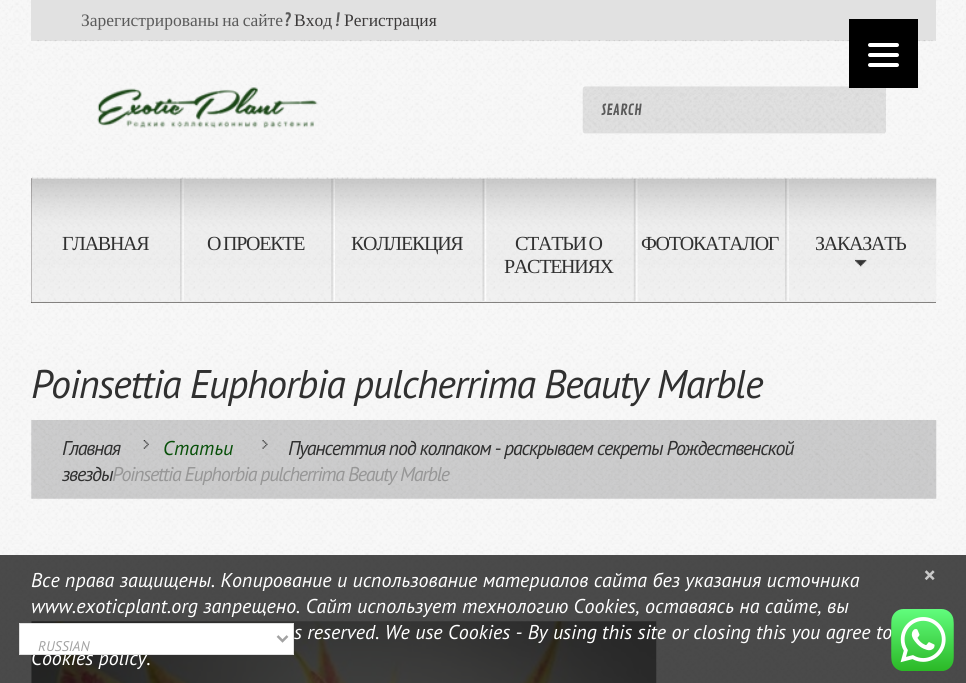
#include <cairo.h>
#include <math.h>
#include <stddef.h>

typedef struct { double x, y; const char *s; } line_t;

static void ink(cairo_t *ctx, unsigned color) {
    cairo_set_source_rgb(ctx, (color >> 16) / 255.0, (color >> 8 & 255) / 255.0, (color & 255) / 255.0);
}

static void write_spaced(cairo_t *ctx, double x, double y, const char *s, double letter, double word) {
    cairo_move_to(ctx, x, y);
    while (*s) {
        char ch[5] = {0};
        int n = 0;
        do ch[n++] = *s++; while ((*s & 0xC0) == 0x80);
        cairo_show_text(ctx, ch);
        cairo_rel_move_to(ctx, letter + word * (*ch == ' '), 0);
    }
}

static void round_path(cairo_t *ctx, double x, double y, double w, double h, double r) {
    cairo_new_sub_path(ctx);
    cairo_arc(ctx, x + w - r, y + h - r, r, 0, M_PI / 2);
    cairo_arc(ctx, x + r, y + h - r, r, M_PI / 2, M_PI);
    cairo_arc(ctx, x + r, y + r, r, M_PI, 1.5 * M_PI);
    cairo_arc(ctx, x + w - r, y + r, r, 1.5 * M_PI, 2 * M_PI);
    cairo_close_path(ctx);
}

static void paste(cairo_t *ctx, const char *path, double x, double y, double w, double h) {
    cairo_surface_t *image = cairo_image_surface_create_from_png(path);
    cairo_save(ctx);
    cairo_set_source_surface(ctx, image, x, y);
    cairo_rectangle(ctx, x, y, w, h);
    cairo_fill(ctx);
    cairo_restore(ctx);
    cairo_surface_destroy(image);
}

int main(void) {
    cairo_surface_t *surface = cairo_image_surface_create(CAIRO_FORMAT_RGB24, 966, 683);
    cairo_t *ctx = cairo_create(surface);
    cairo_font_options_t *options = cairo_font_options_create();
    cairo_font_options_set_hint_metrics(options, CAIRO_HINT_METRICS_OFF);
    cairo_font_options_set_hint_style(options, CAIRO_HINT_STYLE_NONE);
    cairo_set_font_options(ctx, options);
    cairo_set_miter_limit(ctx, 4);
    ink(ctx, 0xFFFFFF);
    cairo_paint(ctx);
    paste(ctx, "media/1.png", 0, 0, 966, 683);
    ink(ctx, 0xE1E1E1);
    cairo_rectangle(ctx, 31, 0, 905, 41);
    cairo_fill(ctx);
    paste(ctx, "media/2.png", 37, 40, 898, 2);
    cairo_select_font_face(ctx, "Liberation Serif", CAIRO_FONT_SLANT_NORMAL, CAIRO_FONT_WEIGHT_NORMAL);
    cairo_set_font_size(ctx, 17.5);
    ink(ctx, 0x5A5A5A);
    write_spaced(ctx, 81, 26, "Зарегистрированы на сайте", 0, -1);
    cairo_select_font_face(ctx, "Contrail One", CAIRO_FONT_SLANT_NORMAL, CAIRO_FONT_WEIGHT_NORMAL);
    cairo_move_to(ctx, 284, 26);
    cairo_show_text(ctx, "?");
    cairo_select_font_face(ctx, "Liberation Serif", CAIRO_FONT_SLANT_NORMAL, CAIRO_FONT_WEIGHT_NORMAL);
    ink(ctx, 0x3C3A3A);
    cairo_move_to(ctx, 294, 26);
    cairo_show_text(ctx, "Вход");
    cairo_select_font_face(ctx, "Contrail One", CAIRO_FONT_SLANT_NORMAL, CAIRO_FONT_WEIGHT_NORMAL);
    ink(ctx, 0x5A5A5A);
    cairo_move_to(ctx, 335, 26);
    cairo_show_text(ctx, "!");
    cairo_select_font_face(ctx, "Liberation Serif", CAIRO_FONT_SLANT_NORMAL, CAIRO_FONT_WEIGHT_NORMAL);
    ink(ctx, 0x3C3A3A);
    cairo_move_to(ctx, 344, 26);
    cairo_show_text(ctx, "Регистрация");
    paste(ctx, "media/3.png", 97, 87, 221, 41);
    paste(ctx, "media/4.png", 582, 86, 304, 48);
    ink(ctx, 0xEDEDED);
    cairo_rectangle(ctx, 585, 133, 300, 1);
    cairo_fill(ctx);
    cairo_select_font_face(ctx, "Contrail One", CAIRO_FONT_SLANT_NORMAL, CAIRO_FONT_WEIGHT_NORMAL);
    cairo_set_font_size(ctx, 15);
    ink(ctx, 0x5A5A5A);
    cairo_move_to(ctx, 601, 115);
    cairo_show_text(ctx, "SEARCH");
    ink(ctx, 0x1B1613);
    cairo_rectangle(ctx, 31, 178, 905, 125);
    cairo_fill(ctx);
    paste(ctx, "media/5.png", 31, 177, 906, 126);
    paste(ctx, "media/6.png", 32, 177, 897, 2);
    cairo_select_font_face(ctx, "Liberation Serif", CAIRO_FONT_SLANT_NORMAL, CAIRO_FONT_WEIGHT_NORMAL);
    cairo_set_font_size(ctx, 20);
    ink(ctx, 0x303030);
    write_spaced(ctx, 62, 250, "ГЛАВНАЯ", -1.25, 0);
    paste(ctx, "media/7.png", 180, 178, 4, 123);
    write_spaced(ctx, 207, 250, "О ПРОЕКТЕ", -1.25, -1);
    paste(ctx, "media/8.png", 331, 178, 4, 123);
    write_spaced(ctx, 351, 250, "КОЛЛЕКЦИЯ", -1.25, 0);
    paste(ctx, "media/9.png", 482, 178, 5, 123);
    write_spaced(ctx, 515, 250, "СТАТЬИ О", -1.25, -1);
    write_spaced(ctx, 504, 273, "РАСТЕНИЯХ", -1.25, 0);
    paste(ctx, "media/10.png", 633, 178, 5, 124);
    write_spaced(ctx, 641, 250, "ФОТОКАТАЛОГ", -1.25, 0);
    paste(ctx, "media/11.png", 785, 178, 4, 123);
    write_spaced(ctx, 815, 250, "ЗАКАЗАТЬ", -1.25, 0);
    paste(ctx, "media/12.png", 855, 259, 12, 8);
    cairo_select_font_face(ctx, "PT Sans", CAIRO_FONT_SLANT_ITALIC, CAIRO_FONT_WEIGHT_NORMAL);
    cairo_set_font_size(ctx, 40);
    write_spaced(ctx, 31, 398, "Poinsettia Euphorbia pulcherrima Beauty Marble", -1.25, 0);
    paste(ctx, "media/13.png", 31, 420, 906, 79);
    cairo_set_font_size(ctx, 20);
    write_spaced(ctx, 62, 455, "Главная", -1.25, 0);
    paste(ctx, "media/14.png", 143, 440, 6, 9);
    ink(ctx, 0x085009);
    cairo_move_to(ctx, 163, 455);
    cairo_show_text(ctx, "Статьи");
    paste(ctx, "media/15.png", 262, 440, 6, 9);
    ink(ctx, 0x303030);
    write_spaced(ctx, 288, 455, "Пуансеттия под колпаком - раскрываем секреты Рождественской", -1.25, 0);
    write_spaced(ctx, 62, 481, "звезды", -1.25, 0);
    ink(ctx, 0x979797);
    write_spaced(ctx, 112, 481, "Poinsettia Euphorbia pulcherrima Beauty Marble", -1.25, 0);
    paste(ctx, "media/16.png", 31, 621, 626, 62);
    ink(ctx, 0x000000);
    cairo_rectangle(ctx, 849, 19, 69, 69);
    cairo_fill(ctx);
    ink(ctx, 0xFFFFFF);
    round_path(ctx, 868, 53, 31, 4, 2);
    cairo_fill(ctx);
    round_path(ctx, 868, 43, 31, 4, 2);
    cairo_fill(ctx);
    round_path(ctx, 868, 63, 31, 4, 2);
    cairo_fill(ctx);
    cairo_set_source_rgba(ctx, 0, 0, 0, 0.7);
    cairo_rectangle(ctx, 0, 555, 966, 128);
    cairo_fill(ctx);
    ink(ctx, 0xFFFFFF);
    cairo_move_to(ctx, 31, 587);
    cairo_show_text(ctx, "Все права защищены. Копирование и использование материалов сайта без указания источника");
    cairo_select_font_face(ctx, "PT Sans", CAIRO_FONT_SLANT_NORMAL, CAIRO_FONT_WEIGHT_BOLD);
    cairo_set_font_size(ctx, 25);
    ink(ctx, 0xC9C9C9);
    cairo_move_to(ctx, 923, 584);
    cairo_show_text(ctx, "×");
    cairo_select_font_face(ctx, "PT Sans", CAIRO_FONT_SLANT_ITALIC, CAIRO_FONT_WEIGHT_NORMAL);
    cairo_set_font_size(ctx, 20);
    ink(ctx, 0xFFFFFF);
    {
        static const line_t items[] = {
            {31, 613, "www.exoticplant.org запрещено. Сайт использует технологию Cookies, оставаясь на сайте, вы"},
            {294, 639, "s reserved. We use Cookies - By using this site or closing this you agree to"},
            {31, 665, "Cookies policy."},
        };
        for (size_t i = 0; i < sizeof items / sizeof *items; i++) {
            cairo_move_to(ctx, items[i].x, items[i].y);
            cairo_show_text(ctx, items[i].s);
        }
    }
    cairo_rectangle(ctx, 19.5, 623.5, 274, 31);
    cairo_fill_preserve(ctx);
    ink(ctx, 0xE0E0E0);
    cairo_set_line_width(ctx, 1);
    cairo_stroke(ctx);
    cairo_new_path(ctx);
    cairo_move_to(ctx, 277.5, 636);
    cairo_line_to(ctx, 282.5, 641);
    cairo_line_to(ctx, 287.5, 636);
    ink(ctx, 0xA2A2A2);
    cairo_set_line_width(ctx, 2.5);
    cairo_stroke(ctx);
    cairo_set_font_size(ctx, 14);
    cairo_move_to(ctx, 38, 651);
    cairo_show_text(ctx, "RUSSIAN");
    paste(ctx, "media/17.png", 891, 609, 63, 62);
    cairo_surface_write_to_png(surface, "image.png");
    cairo_font_options_destroy(options);
    cairo_destroy(ctx);
    cairo_surface_destroy(surface);
    return 0;
}
